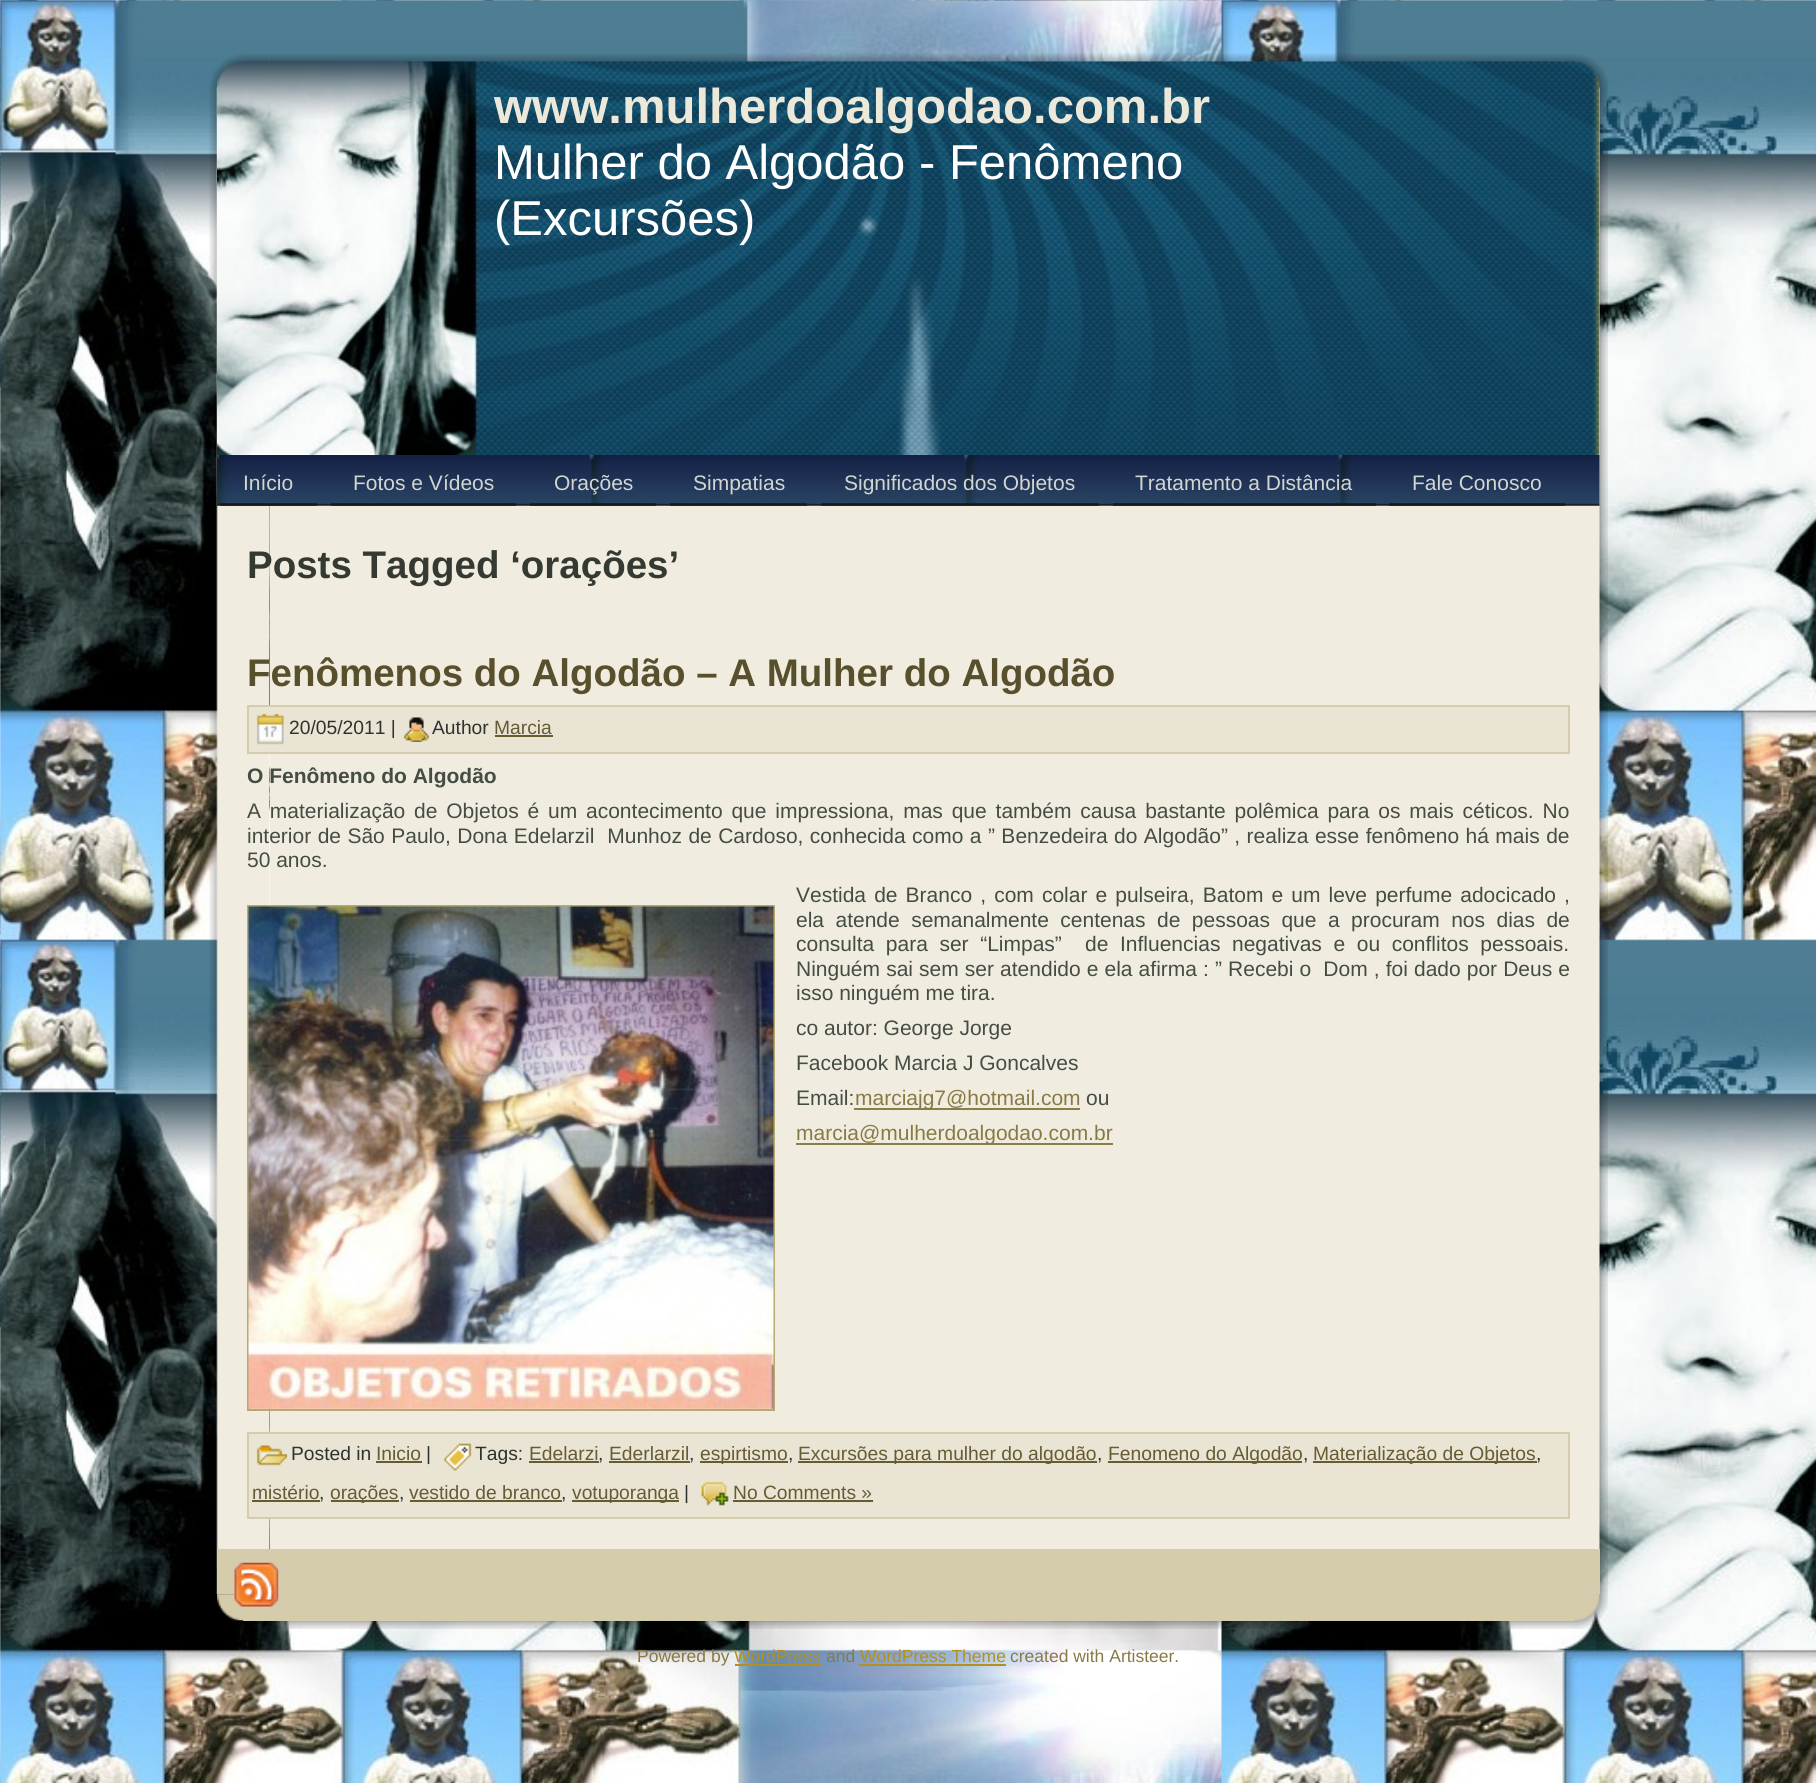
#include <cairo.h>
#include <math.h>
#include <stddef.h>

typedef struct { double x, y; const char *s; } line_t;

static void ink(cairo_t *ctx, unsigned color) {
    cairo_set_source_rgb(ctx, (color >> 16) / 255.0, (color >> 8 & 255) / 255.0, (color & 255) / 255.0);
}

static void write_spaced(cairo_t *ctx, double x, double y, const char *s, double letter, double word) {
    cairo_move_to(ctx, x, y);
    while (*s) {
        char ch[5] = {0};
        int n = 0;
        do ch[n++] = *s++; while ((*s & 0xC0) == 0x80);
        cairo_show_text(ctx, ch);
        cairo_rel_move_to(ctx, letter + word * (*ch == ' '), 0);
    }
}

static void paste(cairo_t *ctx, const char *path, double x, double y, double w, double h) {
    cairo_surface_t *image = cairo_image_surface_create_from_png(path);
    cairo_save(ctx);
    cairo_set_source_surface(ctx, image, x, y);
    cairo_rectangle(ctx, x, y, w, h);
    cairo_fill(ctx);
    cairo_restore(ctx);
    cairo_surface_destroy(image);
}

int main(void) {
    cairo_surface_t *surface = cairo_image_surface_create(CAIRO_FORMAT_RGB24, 1816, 1783);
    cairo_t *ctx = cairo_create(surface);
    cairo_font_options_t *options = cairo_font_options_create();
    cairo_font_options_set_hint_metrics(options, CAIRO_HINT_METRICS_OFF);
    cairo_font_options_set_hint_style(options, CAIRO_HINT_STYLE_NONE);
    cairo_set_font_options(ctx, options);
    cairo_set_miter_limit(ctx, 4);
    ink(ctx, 0xFFFFFF);
    cairo_paint(ctx);
    paste(ctx, "media/1.png", 0, 0, 1816, 1783);
    paste(ctx, "media/2.png", 209, 53, 61, 61);
    paste(ctx, "media/3.png", 269, 53, 1278, 9);
    paste(ctx, "media/4.png", 1547, 53, 61, 61);
    paste(ctx, "media/5.png", 209, 114, 61, 1454);
    paste(ctx, "media/18.png", 1547, 114, 61, 1454);
    paste(ctx, "media/6.png", 217, 61, 1383, 394);
    paste(ctx, "media/7.png", 243, 87, 1330, 342);
    cairo_select_font_face(ctx, "Liberation Sans", CAIRO_FONT_SLANT_NORMAL, CAIRO_FONT_WEIGHT_BOLD);
    cairo_set_font_size(ctx, 49);
    ink(ctx, 0xECE9DA);
    cairo_move_to(ctx, 494, 123);
    cairo_show_text(ctx, "www.mulherdoalgodao.com.br");
    cairo_select_font_face(ctx, "Liberation Sans", CAIRO_FONT_SLANT_NORMAL, CAIRO_FONT_WEIGHT_NORMAL);
    ink(ctx, 0xFFFFFF);
    cairo_move_to(ctx, 494, 179);
    cairo_show_text(ctx, "Mulher do Algodão - Fenômeno");
    cairo_move_to(ctx, 494, 235);
    cairo_show_text(ctx, "(Excursões)");
    ink(ctx, 0xF0EDE0);
    cairo_rectangle(ctx, 270, 505, 1277, 1044);
    cairo_fill(ctx);
    paste(ctx, "media/8.png", 217, 455, 1383, 51);
    cairo_set_font_size(ctx, 21);
    ink(ctx, 0xD2D6D1);
    cairo_move_to(ctx, 243, 490);
    cairo_show_text(ctx, "Início");
    cairo_set_source_rgba(ctx, 0.082, 0.094, 0.082, 0.75);
    cairo_rectangle(ctx, 220, 503, 78, 3);
    cairo_fill(ctx);
    cairo_rectangle(ctx, 298, 503, 19, 3);
    cairo_fill(ctx);
    ink(ctx, 0xD2D6D1);
    cairo_move_to(ctx, 353, 490);
    cairo_show_text(ctx, "Fotos e Vídeos");
    cairo_set_source_rgba(ctx, 0.082, 0.094, 0.082, 0.75);
    cairo_rectangle(ctx, 331, 503, 166, 3);
    cairo_fill(ctx);
    cairo_rectangle(ctx, 497, 503, 19, 3);
    cairo_fill(ctx);
    ink(ctx, 0xD2D6D1);
    cairo_move_to(ctx, 554, 490);
    cairo_show_text(ctx, "Orações");
    cairo_set_source_rgba(ctx, 0.082, 0.094, 0.082, 0.75);
    cairo_rectangle(ctx, 530, 503, 107, 3);
    cairo_fill(ctx);
    cairo_rectangle(ctx, 637, 503, 19, 3);
    cairo_fill(ctx);
    ink(ctx, 0xD2D6D1);
    cairo_move_to(ctx, 693, 490);
    cairo_show_text(ctx, "Simpatias");
    cairo_set_source_rgba(ctx, 0.082, 0.094, 0.082, 0.75);
    cairo_rectangle(ctx, 670, 503, 118, 3);
    cairo_fill(ctx);
    cairo_rectangle(ctx, 788, 503, 19, 3);
    cairo_fill(ctx);
    ink(ctx, 0xD2D6D1);
    cairo_move_to(ctx, 844, 490);
    cairo_show_text(ctx, "Significados dos Objetos");
    cairo_set_source_rgba(ctx, 0.082, 0.094, 0.082, 0.75);
    cairo_rectangle(ctx, 821, 503, 259, 3);
    cairo_fill(ctx);
    cairo_rectangle(ctx, 1080, 503, 19, 3);
    cairo_fill(ctx);
    ink(ctx, 0xD2D6D1);
    cairo_move_to(ctx, 1135, 490);
    cairo_show_text(ctx, "Tratamento a Distância");
    cairo_set_source_rgba(ctx, 0.082, 0.094, 0.082, 0.75);
    cairo_rectangle(ctx, 1113, 503, 244, 3);
    cairo_fill(ctx);
    cairo_rectangle(ctx, 1357, 503, 19, 3);
    cairo_fill(ctx);
    ink(ctx, 0xD2D6D1);
    cairo_move_to(ctx, 1412, 490);
    cairo_show_text(ctx, "Fale Conosco");
    cairo_set_source_rgba(ctx, 0.082, 0.094, 0.082, 0.75);
    cairo_rectangle(ctx, 1389, 503, 157, 3);
    cairo_fill(ctx);
    cairo_rectangle(ctx, 1546, 503, 19, 3);
    cairo_fill(ctx);
    cairo_select_font_face(ctx, "Liberation Sans", CAIRO_FONT_SLANT_NORMAL, CAIRO_FONT_WEIGHT_BOLD);
    cairo_set_font_size(ctx, 38.5);
    ink(ctx, 0x343932);
    cairo_move_to(ctx, 247, 578);
    cairo_show_text(ctx, "Posts Tagged ‘orações’");
    ink(ctx, 0x584F2C);
    cairo_move_to(ctx, 247, 686);
    cairo_show_text(ctx, "Fenômenos do Algodão – A Mulher do Algodão");
    ink(ctx, 0xE9E4D3);
    cairo_rectangle(ctx, 248, 706, 1321, 47);
    cairo_fill_preserve(ctx);
    ink(ctx, 0xD4CCAA);
    cairo_stroke(ctx);
    paste(ctx, "media/9.png", 256, 714, 28, 31);
    cairo_select_font_face(ctx, "Liberation Sans", CAIRO_FONT_SLANT_NORMAL, CAIRO_FONT_WEIGHT_NORMAL);
    cairo_set_font_size(ctx, 19.25);
    ink(ctx, 0x2F332E);
    cairo_move_to(ctx, 289, 734);
    cairo_show_text(ctx, "20/05/2011 |");
    paste(ctx, "media/10.png", 404, 717, 25, 25);
    cairo_move_to(ctx, 432, 734);
    cairo_show_text(ctx, "Author");
    ink(ctx, 0x665C33);
    cairo_move_to(ctx, 494, 734);
    cairo_show_text(ctx, "Marcia");
    cairo_rectangle(ctx, 495, 735, 58, 2);
    cairo_fill(ctx);
    cairo_select_font_face(ctx, "Liberation Sans", CAIRO_FONT_SLANT_NORMAL, CAIRO_FONT_WEIGHT_BOLD);
    cairo_set_font_size(ctx, 21);
    ink(ctx, 0x454C43);
    cairo_move_to(ctx, 247, 783);
    cairo_show_text(ctx, "O Fenômeno do Algodão");
    cairo_select_font_face(ctx, "Liberation Sans", CAIRO_FONT_SLANT_NORMAL, CAIRO_FONT_WEIGHT_NORMAL);
    write_spaced(ctx, 247, 818, "A materialização de Objetos é um acontecimento que impressiona, mas que também causa bastante polêmica para os mais céticos. No", 0, 3);
    write_spaced(ctx, 247, 843, "interior de São Paulo, Dona Edelarzil  Munhoz de Cardoso, conhecida como a ” Benzedeira do Algodão” , realiza esse fenômeno há mais de", 0, 0.6);
    cairo_move_to(ctx, 247, 867);
    cairo_show_text(ctx, "50 anos.");
    cairo_rectangle(ctx, 248, 906, 526, 504);
    ink(ctx, 0xB7A971);
    cairo_stroke(ctx);
    paste(ctx, "media/11.png", 248, 906, 526, 503);
    ink(ctx, 0x454C43);
    write_spaced(ctx, 796, 902, "Vestida de Branco , com colar e pulseira, Batom e um leve perfume adocicado ,", 0, 2.25);
    write_spaced(ctx, 796, 927, "ela atende semanalmente centenas de pessoas que a procuram nos dias de", 0, 5.6);
    write_spaced(ctx, 796, 951, "consulta para ser “Limpas”  de Influencias negativas e ou conflitos pessoais.", 0, 5.75);
    write_spaced(ctx, 796, 976, "Ninguém sai sem ser atendido e ela afirma : ” Recebi o  Dom , foi dado por Deus e", 0, 0.25);
    {
        static const line_t items[] = {
            {796, 1000, "isso ninguém me tira."},
            {796, 1035, "co autor: George Jorge"},
            {796, 1070, "Facebook Marcia J Goncalves"},
            {796, 1105, "Email:"},
        };
        for (size_t i = 0; i < sizeof items / sizeof *items; i++) {
            cairo_move_to(ctx, items[i].x, items[i].y);
            cairo_show_text(ctx, items[i].s);
        }
    }
    ink(ctx, 0x8B7D46);
    cairo_rectangle(ctx, 854, 1108, 226, 2);
    cairo_fill(ctx);
    ink(ctx, 0x887A44);
    cairo_move_to(ctx, 855, 1105);
    cairo_show_text(ctx, "marciajg7@hotmail.com");
    ink(ctx, 0x454C43);
    cairo_move_to(ctx, 1086, 1105);
    cairo_show_text(ctx, "ou");
    ink(ctx, 0x8B7D46);
    cairo_rectangle(ctx, 796, 1143, 317, 2);
    cairo_fill(ctx);
    ink(ctx, 0x887A44);
    cairo_move_to(ctx, 796, 1140);
    cairo_show_text(ctx, "marcia@mulherdoalgodao.com.br");
    ink(ctx, 0xE9E4D3);
    cairo_rectangle(ctx, 248, 1433, 1321, 85);
    cairo_fill_preserve(ctx);
    ink(ctx, 0xD4CCAA);
    cairo_stroke(ctx);
    paste(ctx, "media/12.png", 256, 1445, 31, 21);
    cairo_set_font_size(ctx, 19.25);
    ink(ctx, 0x2F332E);
    cairo_move_to(ctx, 291, 1460);
    cairo_show_text(ctx, "Posted in");
    ink(ctx, 0x665C33);
    cairo_move_to(ctx, 376, 1460);
    cairo_show_text(ctx, "Inicio");
    cairo_rectangle(ctx, 376, 1461, 46, 2);
    cairo_fill(ctx);
    ink(ctx, 0x2F332E);
    cairo_move_to(ctx, 426, 1460);
    cairo_show_text(ctx, "|");
    paste(ctx, "media/13.png", 444, 1443, 28, 28);
    cairo_move_to(ctx, 475, 1460);
    cairo_show_text(ctx, "Tags:");
    ink(ctx, 0x665C33);
    cairo_move_to(ctx, 529, 1460);
    cairo_show_text(ctx, "Edelarzi");
    cairo_rectangle(ctx, 529, 1461, 70, 2);
    cairo_fill(ctx);
    ink(ctx, 0x2F332E);
    cairo_move_to(ctx, 598, 1460);
    cairo_show_text(ctx, ",");
    ink(ctx, 0x665C33);
    cairo_move_to(ctx, 609, 1460);
    cairo_show_text(ctx, "Ederlarzil");
    cairo_rectangle(ctx, 609, 1461, 81, 2);
    cairo_fill(ctx);
    ink(ctx, 0x2F332E);
    cairo_move_to(ctx, 689, 1460);
    cairo_show_text(ctx, ",");
    ink(ctx, 0x665C33);
    cairo_rectangle(ctx, 700, 1461, 88, 2);
    cairo_fill(ctx);
    cairo_move_to(ctx, 700, 1460);
    cairo_show_text(ctx, "espirtismo");
    ink(ctx, 0x2F332E);
    cairo_move_to(ctx, 788, 1460);
    cairo_show_text(ctx, ",");
    ink(ctx, 0x665C33);
    cairo_rectangle(ctx, 798, 1461, 299, 2);
    cairo_fill(ctx);
    cairo_move_to(ctx, 798, 1460);
    cairo_show_text(ctx, "Excursões para mulher do algodão");
    ink(ctx, 0x2F332E);
    cairo_move_to(ctx, 1097, 1460);
    cairo_show_text(ctx, ",");
    ink(ctx, 0x665C33);
    cairo_rectangle(ctx, 1108, 1461, 194, 2);
    cairo_fill(ctx);
    cairo_move_to(ctx, 1108, 1460);
    cairo_show_text(ctx, "Fenomeno do Algodão");
    ink(ctx, 0x2F332E);
    cairo_move_to(ctx, 1303, 1460);
    cairo_show_text(ctx, ",");
    ink(ctx, 0x665C33);
    cairo_rectangle(ctx, 1313, 1461, 224, 2);
    cairo_fill(ctx);
    cairo_move_to(ctx, 1313, 1460);
    cairo_show_text(ctx, "Materialização de Objetos");
    ink(ctx, 0x2F332E);
    cairo_move_to(ctx, 1536, 1460);
    cairo_show_text(ctx, ",");
    ink(ctx, 0x665C33);
    cairo_move_to(ctx, 252, 1499);
    cairo_show_text(ctx, "mistério");
    cairo_rectangle(ctx, 252, 1500, 68, 2);
    cairo_fill(ctx);
    ink(ctx, 0x2F332E);
    cairo_move_to(ctx, 319, 1499);
    cairo_show_text(ctx, ",");
    ink(ctx, 0x665C33);
    cairo_rectangle(ctx, 331, 1500, 68, 2);
    cairo_fill(ctx);
    cairo_move_to(ctx, 330, 1499);
    cairo_show_text(ctx, "orações");
    ink(ctx, 0x2F332E);
    cairo_move_to(ctx, 399, 1499);
    cairo_show_text(ctx, ",");
    ink(ctx, 0x665C33);
    cairo_move_to(ctx, 409, 1499);
    cairo_show_text(ctx, "vestido de branco");
    cairo_rectangle(ctx, 410, 1500, 152, 2);
    cairo_fill(ctx);
    ink(ctx, 0x2F332E);
    cairo_move_to(ctx, 561, 1499);
    cairo_show_text(ctx, ",");
    ink(ctx, 0x665C33);
    cairo_rectangle(ctx, 572, 1500, 107, 2);
    cairo_fill(ctx);
    cairo_move_to(ctx, 572, 1499);
    cairo_show_text(ctx, "votuporanga");
    ink(ctx, 0x2F332E);
    cairo_move_to(ctx, 684, 1499);
    cairo_show_text(ctx, "|");
    paste(ctx, "media/14.png", 701, 1481, 28, 25);
    ink(ctx, 0x665C33);
    cairo_move_to(ctx, 733, 1499);
    cairo_show_text(ctx, "No Comments »");
    cairo_rectangle(ctx, 733, 1500, 140, 2);
    cairo_fill(ctx);
    paste(ctx, "media/19.png", 216, 1568, 54, 59);
    paste(ctx, "media/21.png", 1547, 1568, 61, 61);
    ink(ctx, 0xD4CCAA);
    cairo_rectangle(ctx, 217, 1549, 1383, 45);
    cairo_fill(ctx);
    paste(ctx, "media/15.png", 217, 1594, 26, 27);
    cairo_rectangle(ctx, 243, 1594, 1331, 27);
    cairo_fill(ctx);
    paste(ctx, "media/16.png", 234, 1562, 45, 45);
    paste(ctx, "media/17.png", 1574, 1594, 26, 27);
    paste(ctx, "media/20.png", 269, 1621, 1278, 8);
    cairo_set_font_size(ctx, 17.5);
    ink(ctx, 0x887A44);
    cairo_move_to(ctx, 637, 1662);
    cairo_show_text(ctx, "Powered by");
    ink(ctx, 0xB3911A);
    cairo_move_to(ctx, 734, 1662);
    cairo_show_text(ctx, "WordPress");
    cairo_rectangle(ctx, 735, 1664, 86, 2);
    cairo_fill(ctx);
    ink(ctx, 0x887A44);
    cairo_move_to(ctx, 826, 1662);
    cairo_show_text(ctx, "and");
    ink(ctx, 0xB3911A);
    cairo_move_to(ctx, 860, 1662);
    cairo_show_text(ctx, "WordPress Theme");
    cairo_rectangle(ctx, 859, 1664, 147, 2);
    cairo_fill(ctx);
    ink(ctx, 0x887A44);
    cairo_move_to(ctx, 1010, 1662);
    cairo_show_text(ctx, "created with Artisteer.");
    cairo_surface_write_to_png(surface, "image.png");
    cairo_font_options_destroy(options);
    cairo_destroy(ctx);
    cairo_surface_destroy(surface);
    return 0;
}
